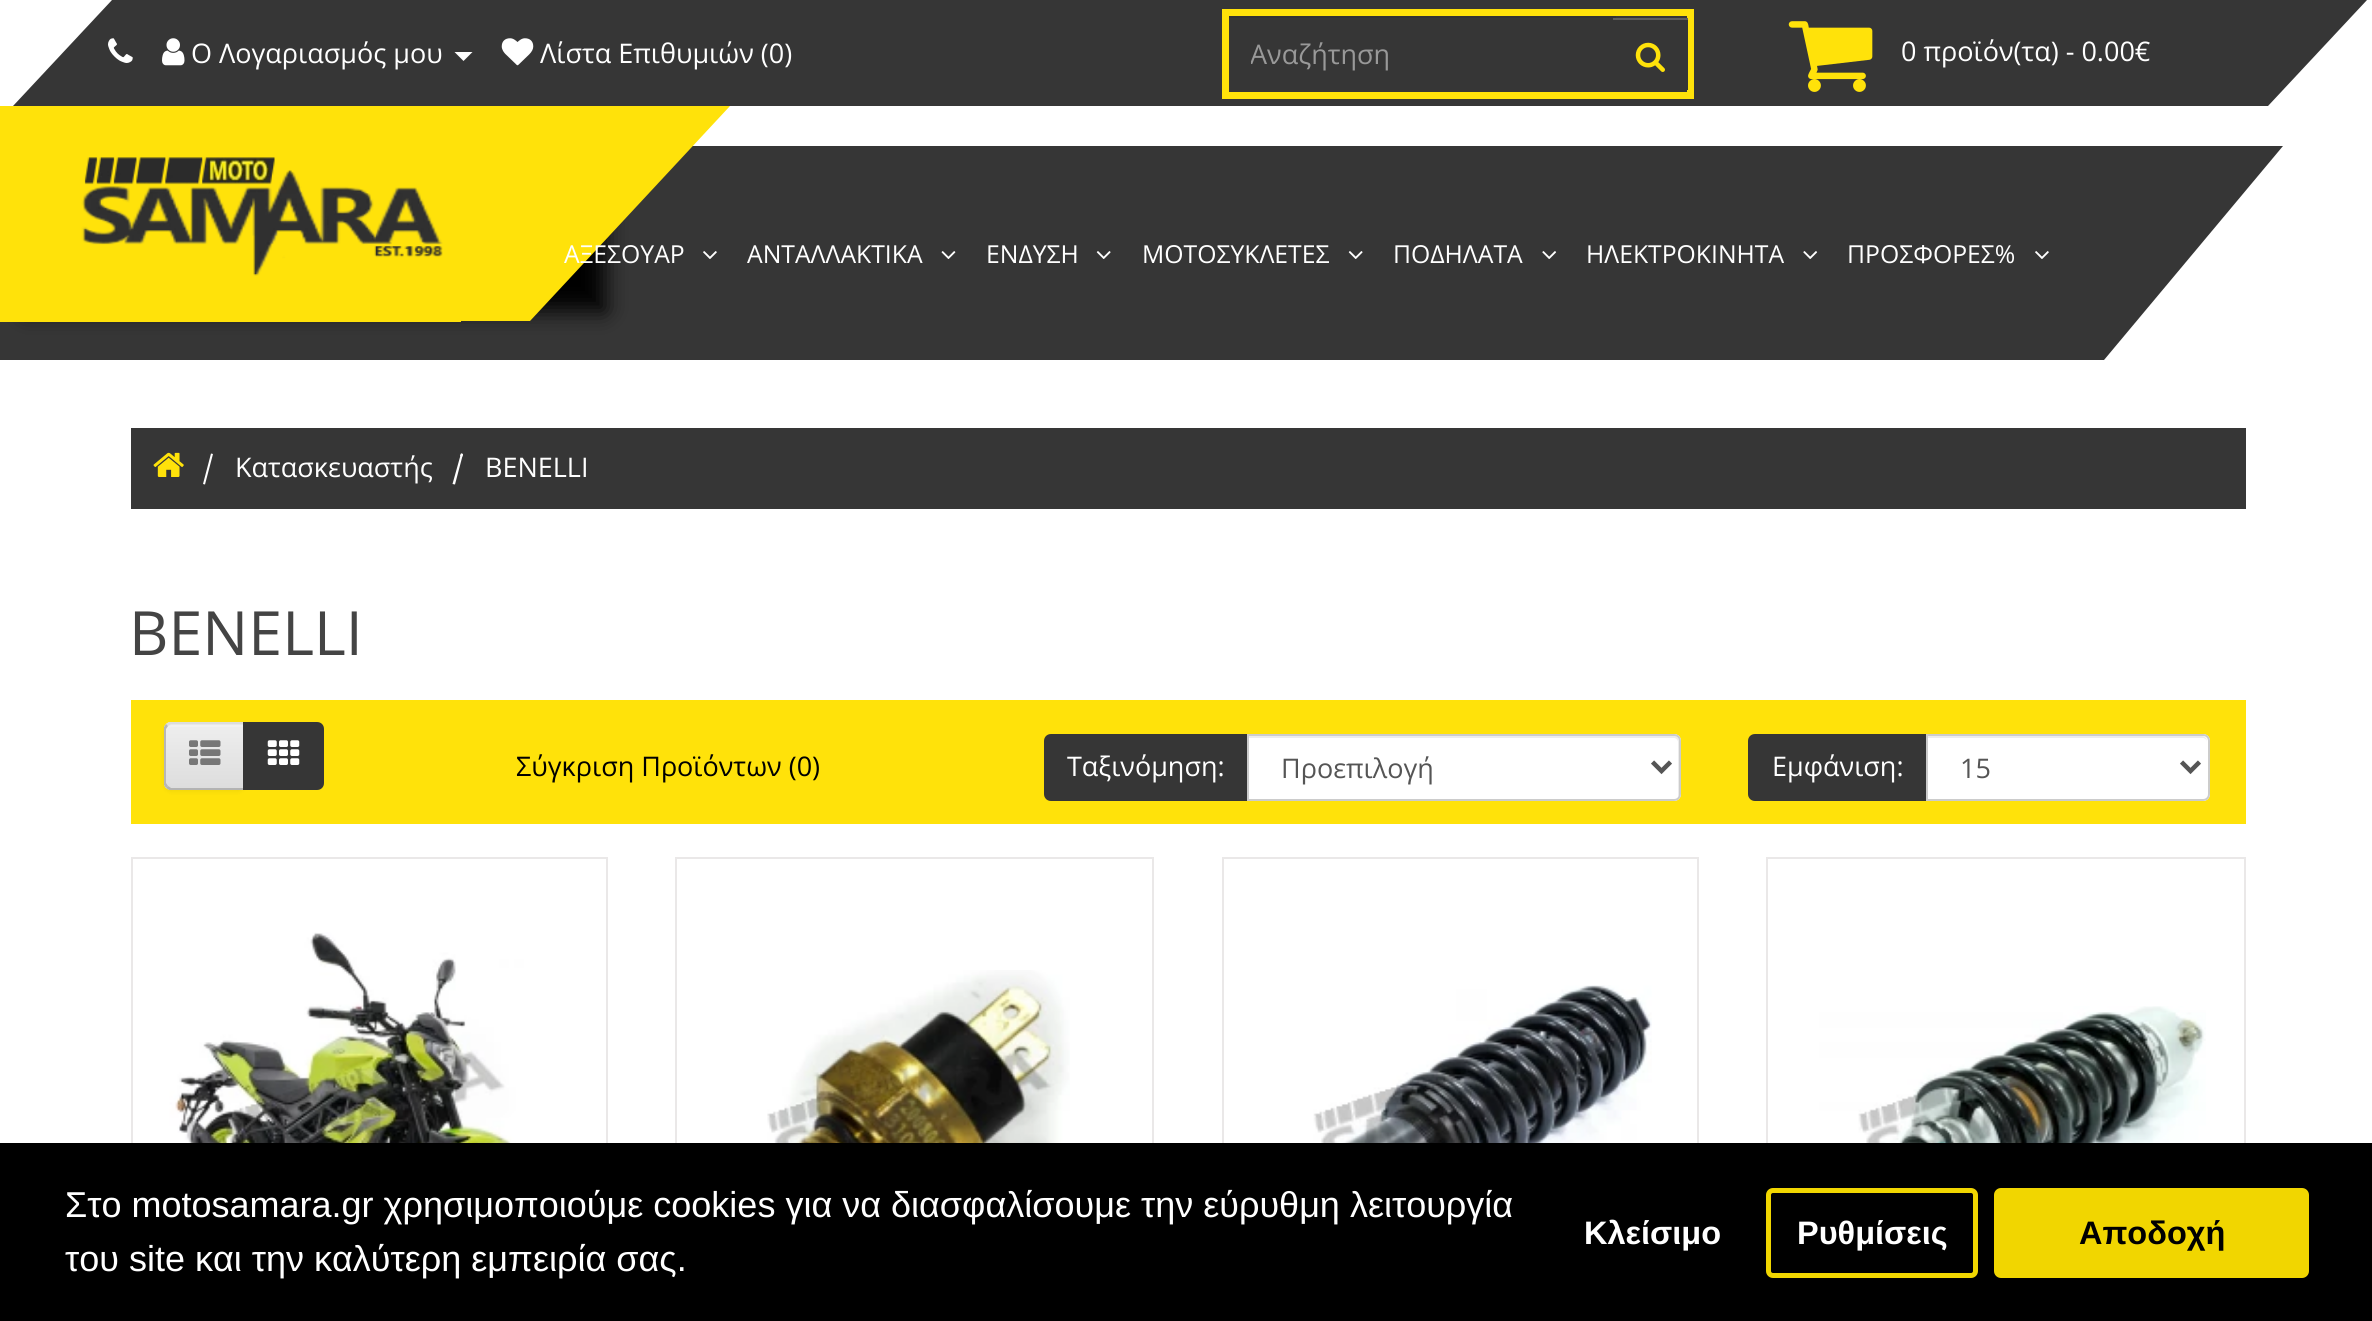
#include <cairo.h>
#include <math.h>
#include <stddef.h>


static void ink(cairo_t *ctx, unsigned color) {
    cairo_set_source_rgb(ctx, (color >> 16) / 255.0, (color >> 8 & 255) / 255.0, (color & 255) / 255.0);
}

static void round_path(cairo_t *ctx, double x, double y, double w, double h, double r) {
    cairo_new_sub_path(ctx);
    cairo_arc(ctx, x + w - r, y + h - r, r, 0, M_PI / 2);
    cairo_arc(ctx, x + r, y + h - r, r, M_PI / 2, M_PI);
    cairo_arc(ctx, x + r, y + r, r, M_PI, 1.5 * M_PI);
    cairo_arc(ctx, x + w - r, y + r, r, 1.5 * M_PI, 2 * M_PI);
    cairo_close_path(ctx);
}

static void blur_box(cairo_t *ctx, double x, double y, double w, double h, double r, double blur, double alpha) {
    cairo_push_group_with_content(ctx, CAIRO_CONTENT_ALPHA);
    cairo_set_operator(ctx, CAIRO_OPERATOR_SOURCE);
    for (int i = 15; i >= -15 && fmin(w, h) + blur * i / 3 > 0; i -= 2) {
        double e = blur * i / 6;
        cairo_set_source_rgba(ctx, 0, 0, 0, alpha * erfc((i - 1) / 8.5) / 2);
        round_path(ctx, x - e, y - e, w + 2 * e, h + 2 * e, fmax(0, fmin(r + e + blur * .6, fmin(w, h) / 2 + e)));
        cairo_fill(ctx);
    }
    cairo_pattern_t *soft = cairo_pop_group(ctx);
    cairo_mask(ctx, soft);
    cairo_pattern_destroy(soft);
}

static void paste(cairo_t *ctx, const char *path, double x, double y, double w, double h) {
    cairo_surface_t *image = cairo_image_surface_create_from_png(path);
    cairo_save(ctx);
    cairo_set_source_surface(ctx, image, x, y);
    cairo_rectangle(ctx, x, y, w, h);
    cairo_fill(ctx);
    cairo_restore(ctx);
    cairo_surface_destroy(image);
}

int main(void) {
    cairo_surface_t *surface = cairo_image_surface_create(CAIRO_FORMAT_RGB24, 2372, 1321);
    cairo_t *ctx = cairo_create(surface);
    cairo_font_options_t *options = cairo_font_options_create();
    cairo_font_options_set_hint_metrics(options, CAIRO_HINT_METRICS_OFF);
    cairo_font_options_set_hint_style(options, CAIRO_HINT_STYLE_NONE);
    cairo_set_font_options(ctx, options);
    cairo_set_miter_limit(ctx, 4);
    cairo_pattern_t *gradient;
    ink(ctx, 0xFFFFFF);
    cairo_paint(ctx);
    ink(ctx, 0x363636);
    cairo_new_path(ctx);
    cairo_move_to(ctx, 112, 0);
    cairo_line_to(ctx, 2367, 0);
    cairo_line_to(ctx, 2268, 106);
    cairo_line_to(ctx, 13, 106);
    cairo_close_path(ctx);
    cairo_fill(ctx);
    paste(ctx, "media/1.png", 108, 38, 25, 25);
    paste(ctx, "media/2.png", 162, 38, 23, 28);
    cairo_select_font_face(ctx, "Open Sans", CAIRO_FONT_SLANT_NORMAL, CAIRO_FONT_WEIGHT_NORMAL);
    cairo_set_font_size(ctx, 27);
    ink(ctx, 0xFFFFFF);
    cairo_move_to(ctx, 191, 63);
    cairo_show_text(ctx, "Ο Λογαριασμός μου");
    cairo_new_path(ctx);
    cairo_move_to(ctx, 454.5, 52);
    cairo_line_to(ctx, 472.5, 52);
    cairo_line_to(ctx, 463.5, 61);
    cairo_close_path(ctx);
    cairo_fill(ctx);
    paste(ctx, "media/3.png", 501, 38, 33, 28);
    cairo_move_to(ctx, 540, 63);
    cairo_show_text(ctx, "Λίστα Επιθυμιών (0)");
    cairo_rectangle(ctx, 1225.5, 12.5, 465, 83);
    ink(ctx, 0xFFE20A);
    cairo_set_line_width(ctx, 7);
    cairo_stroke(ctx);
    ink(ctx, 0x323232);
    cairo_rectangle(ctx, 1229, 16, 387, 2);
    cairo_fill(ctx);
    cairo_save(ctx);
    cairo_rectangle(ctx, 1251, 36, 342, 38);
    cairo_clip(ctx);
    ink(ctx, 0x999999);
    cairo_move_to(ctx, 1250, 64);
    cairo_show_text(ctx, "Αναζήτηση");
    cairo_restore(ctx);
    ink(ctx, 0x363636);
    cairo_rectangle(ctx, 1687, 20, 1, 70);
    cairo_fill(ctx);
    ink(ctx, 0x5E5E5E);
    cairo_rectangle(ctx, 1613, 18, 75, 2);
    cairo_fill(ctx);
    paste(ctx, "media/4.png", 1635, 42, 30, 30);
    paste(ctx, "media/5.png", 1788, 21, 85, 71);
    ink(ctx, 0xFFFFFF);
    cairo_move_to(ctx, 1901, 61);
    cairo_show_text(ctx, "0 προϊόν(τα) - 0.00€");
    ink(ctx, 0x363636);
    cairo_new_path(ctx);
    cairo_move_to(ctx, -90, 146);
    cairo_line_to(ctx, 2283, 146);
    cairo_line_to(ctx, 2104, 360);
    cairo_line_to(ctx, -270, 360);
    cairo_close_path(ctx);
    cairo_fill(ctx);
    ink(ctx, 0x000000);
    blur_box(ctx, 25, 144, 580, 167, 0, 11, 1);
    ink(ctx, 0xFFE20A);
    cairo_new_path(ctx);
    cairo_move_to(ctx, 100, 106);
    cairo_line_to(ctx, 730, 106);
    cairo_line_to(ctx, 530, 321);
    cairo_line_to(ctx, -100, 321);
    cairo_close_path(ctx);
    cairo_fill(ctx);
    cairo_rectangle(ctx, 0, 106, 461, 216);
    cairo_fill(ctx);
    paste(ctx, "media/6.png", 81, 157, 362, 119);
    cairo_set_font_size(ctx, 24.75);
    ink(ctx, 0xFFFFFF);
    cairo_move_to(ctx, 564, 263);
    cairo_show_text(ctx, "AΞΕΣΟΥΑΡ");
    paste(ctx, "media/7.png", 703, 251, 14, 8);
    cairo_move_to(ctx, 747, 263);
    cairo_show_text(ctx, "ΑΝΤΑΛΛΑΚΤΙΚΑ");
    paste(ctx, "media/8.png", 941, 251, 15, 8);
    cairo_move_to(ctx, 986, 263);
    cairo_show_text(ctx, "ΕΝΔΥΣΗ");
    paste(ctx, "media/9.png", 1096, 251, 15, 8);
    cairo_move_to(ctx, 1142, 263);
    cairo_show_text(ctx, "ΜΟΤΟΣΥΚΛΕΤΕΣ");
    paste(ctx, "media/9.png", 1348, 251, 15, 8);
    cairo_move_to(ctx, 1393, 263);
    cairo_show_text(ctx, "ΠΟΔΗΛΑΤΑ");
    paste(ctx, "media/10.png", 1542, 251, 15, 8);
    cairo_move_to(ctx, 1586, 263);
    cairo_show_text(ctx, "ΗΛΕΚΤΡΟΚΙΝΗΤΑ");
    paste(ctx, "media/10.png", 1803, 251, 15, 8);
    cairo_move_to(ctx, 1847, 263);
    cairo_show_text(ctx, "ΠΡΟΣΦΟΡΕΣ%");
    paste(ctx, "media/7.png", 2035, 251, 14, 8);
    ink(ctx, 0x363636);
    cairo_rectangle(ctx, 131, 428, 2115, 81);
    cairo_fill(ctx);
    paste(ctx, "media/11.png", 153, 452, 31, 25);
    ink(ctx, 0xFFFFFF);
    cairo_new_path(ctx);
    cairo_move_to(ctx, 203, 484);
    cairo_line_to(ctx, 211, 453.5);
    cairo_line_to(ctx, 213, 454);
    cairo_line_to(ctx, 205, 484.5);
    cairo_close_path(ctx);
    cairo_fill(ctx);
    cairo_set_font_size(ctx, 27);
    cairo_move_to(ctx, 235, 477);
    cairo_show_text(ctx, "Κατασκευαστής");
    cairo_new_path(ctx);
    cairo_move_to(ctx, 460, 456);
    cairo_line_to(ctx, 461, 453.5);
    cairo_line_to(ctx, 463, 454);
    cairo_line_to(ctx, 462.5, 456.5);
    cairo_close_path(ctx);
    cairo_fill(ctx);
    cairo_new_path(ctx);
    cairo_move_to(ctx, 452.5, 484);
    cairo_line_to(ctx, 461, 453.5);
    cairo_line_to(ctx, 463, 454);
    cairo_line_to(ctx, 455, 484.5);
    cairo_close_path(ctx);
    cairo_fill(ctx);
    cairo_move_to(ctx, 485, 477);
    cairo_show_text(ctx, "BENELLI");
    cairo_set_font_size(ctx, 61);
    ink(ctx, 0x444444);
    cairo_move_to(ctx, 129, 655);
    cairo_show_text(ctx, "BENELLI");
    ink(ctx, 0xFFE20A);
    cairo_rectangle(ctx, 131, 700, 2115, 124);
    cairo_fill(ctx);
    ink(ctx, 0x000000);
    blur_box(ctx, 164, 725, 81, 67, 7, 2, 0.05);
    ink(ctx, 0xE7E7E7);
    cairo_new_path(ctx);
    cairo_move_to(ctx, 171, 722);
    cairo_line_to(ctx, 245, 722);
    cairo_line_to(ctx, 245, 790);
    cairo_line_to(ctx, 171, 790);
    cairo_curve_to(ctx, 167, 790, 164, 787, 164, 783);
    cairo_line_to(ctx, 164, 729);
    cairo_curve_to(ctx, 164, 725, 167, 722, 171, 722);
    cairo_close_path(ctx);
    cairo_fill(ctx);
    cairo_save(ctx);
    cairo_new_path(ctx);
    cairo_move_to(ctx, 171, 722);
    cairo_line_to(ctx, 245, 722);
    cairo_line_to(ctx, 245, 790);
    cairo_line_to(ctx, 171, 790);
    cairo_curve_to(ctx, 167, 790, 164, 787, 164, 783);
    cairo_line_to(ctx, 164, 729);
    cairo_curve_to(ctx, 164, 725, 167, 722, 171, 722);
    cairo_close_path(ctx);
    cairo_clip(ctx);
    gradient = cairo_pattern_create_linear(205, 725, 205, 788);
    cairo_pattern_add_color_stop_rgba(gradient, 0, 0.933, 0.933, 0.933, 1);
    cairo_pattern_add_color_stop_rgba(gradient, 1, 0.867, 0.867, 0.867, 1);
    cairo_set_source(ctx, gradient);
    cairo_pattern_destroy(gradient);
    cairo_rectangle(ctx, 164, 725, 79, 63);
    cairo_fill(ctx);
    cairo_restore(ctx);
    ink(ctx, 0xF1F1F1);
    cairo_new_path(ctx);
    cairo_move_to(ctx, 171, 727);
    cairo_line_to(ctx, 243, 727);
    cairo_line_to(ctx, 243, 725);
    cairo_line_to(ctx, 172, 725);
    cairo_curve_to(ctx, 170, 725, 168, 727, 167, 729);
    cairo_curve_to(ctx, 168, 728, 170, 727, 171, 727);
    cairo_close_path(ctx);
    cairo_fill(ctx);
    ink(ctx, 0xDDDDDD);
    cairo_new_path(ctx);
    cairo_move_to(ctx, 171, 724);
    cairo_line_to(ctx, 168, 726);
    cairo_line_to(ctx, 166, 724);
    cairo_line_to(ctx, 169, 722);
    cairo_line_to(ctx, 245, 722);
    cairo_line_to(ctx, 243, 724);
    cairo_close_path(ctx);
    cairo_fill(ctx);
    ink(ctx, 0xB3B3B3);
    cairo_new_path(ctx);
    cairo_move_to(ctx, 169, 790);
    cairo_line_to(ctx, 166, 788);
    cairo_line_to(ctx, 168, 786);
    cairo_line_to(ctx, 171, 788);
    cairo_line_to(ctx, 243, 788);
    cairo_line_to(ctx, 245, 790);
    cairo_close_path(ctx);
    cairo_fill(ctx);
    ink(ctx, 0xB7B7B7);
    cairo_new_path(ctx);
    cairo_move_to(ctx, 164, 727);
    cairo_line_to(ctx, 166, 724);
    cairo_line_to(ctx, 168, 726);
    cairo_line_to(ctx, 166, 729);
    cairo_line_to(ctx, 166, 783);
    cairo_line_to(ctx, 168, 786);
    cairo_line_to(ctx, 166, 788);
    cairo_line_to(ctx, 164, 785);
    cairo_close_path(ctx);
    cairo_fill(ctx);
    paste(ctx, "media/12.png", 189, 740, 32, 25);
    ink(ctx, 0x363636);
    cairo_new_path(ctx);
    cairo_move_to(ctx, 244, 723);
    cairo_line_to(ctx, 317, 723);
    cairo_curve_to(ctx, 320.5, 723, 323, 725.5, 323, 729);
    cairo_line_to(ctx, 323, 783);
    cairo_curve_to(ctx, 323, 786.5, 320.5, 789, 317, 789);
    cairo_line_to(ctx, 244, 789);
    cairo_close_path(ctx);
    cairo_fill_preserve(ctx);
    cairo_set_line_width(ctx, 2);
    cairo_stroke(ctx);
    paste(ctx, "media/13.png", 267, 740, 33, 25);
    cairo_set_font_size(ctx, 27);
    ink(ctx, 0x000000);
    cairo_move_to(ctx, 516, 776);
    cairo_show_text(ctx, "Σύγκριση Προϊόντων (0)");
    ink(ctx, 0x363636);
    cairo_new_path(ctx);
    cairo_move_to(ctx, 1051, 734);
    cairo_line_to(ctx, 1247, 734);
    cairo_line_to(ctx, 1247, 801);
    cairo_line_to(ctx, 1051, 801);
    cairo_curve_to(ctx, 1047, 801, 1044, 798, 1044, 794);
    cairo_line_to(ctx, 1044, 741);
    cairo_curve_to(ctx, 1044, 737, 1047, 734, 1051, 734);
    cairo_close_path(ctx);
    cairo_fill(ctx);
    ink(ctx, 0xFFFFFF);
    cairo_move_to(ctx, 1067, 776);
    cairo_show_text(ctx, "Ταξινόμηση:");
    cairo_new_path(ctx);
    cairo_move_to(ctx, 1247, 734);
    cairo_line_to(ctx, 1674, 734);
    cairo_curve_to(ctx, 1678, 734, 1681, 737, 1681, 741);
    cairo_line_to(ctx, 1681, 794);
    cairo_curve_to(ctx, 1681, 798, 1678, 801, 1674, 801);
    cairo_line_to(ctx, 1247, 801);
    cairo_close_path(ctx);
    cairo_fill(ctx);
    ink(ctx, 0xECECEC);
    cairo_new_path(ctx);
    cairo_move_to(ctx, 1249, 738);
    cairo_line_to(ctx, 1674, 738);
    cairo_curve_to(ctx, 1676, 738, 1678, 740, 1678, 742);
    cairo_line_to(ctx, 1678, 797);
    cairo_curve_to(ctx, 1679, 796, 1679, 795, 1679, 794);
    cairo_line_to(ctx, 1679, 741);
    cairo_curve_to(ctx, 1679, 738, 1677, 736, 1674, 736);
    cairo_line_to(ctx, 1249, 736);
    cairo_close_path(ctx);
    cairo_fill(ctx);
    cairo_new_path(ctx);
    cairo_move_to(ctx, 1248, 735);
    cairo_line_to(ctx, 1674, 735);
    cairo_curve_to(ctx, 1677.5, 735, 1680, 737.5, 1680, 741);
    cairo_line_to(ctx, 1680, 794);
    cairo_curve_to(ctx, 1680, 797.5, 1677.5, 800, 1674, 800);
    cairo_line_to(ctx, 1248, 800);
    cairo_close_path(ctx);
    ink(ctx, 0xCCCCCC);
    cairo_stroke(ctx);
    cairo_new_path(ctx);
    cairo_move_to(ctx, 1652.5, 762);
    cairo_line_to(ctx, 1661.5, 771);
    cairo_line_to(ctx, 1670.5, 762);
    ink(ctx, 0x555555);
    cairo_set_line_width(ctx, 4.5);
    cairo_stroke(ctx);
    cairo_move_to(ctx, 1281, 778);
    cairo_show_text(ctx, "Προεπιλογή");
    ink(ctx, 0x363636);
    cairo_new_path(ctx);
    cairo_move_to(ctx, 1755, 734);
    cairo_line_to(ctx, 1926, 734);
    cairo_line_to(ctx, 1926, 801);
    cairo_line_to(ctx, 1755, 801);
    cairo_curve_to(ctx, 1751, 801, 1748, 798, 1748, 794);
    cairo_line_to(ctx, 1748, 741);
    cairo_curve_to(ctx, 1748, 737, 1751, 734, 1755, 734);
    cairo_close_path(ctx);
    cairo_fill(ctx);
    ink(ctx, 0xFFFFFF);
    cairo_move_to(ctx, 1772, 776);
    cairo_show_text(ctx, "Εμφάνιση:");
    cairo_new_path(ctx);
    cairo_move_to(ctx, 1926, 734);
    cairo_line_to(ctx, 2203, 734);
    cairo_curve_to(ctx, 2207, 734, 2210, 737, 2210, 741);
    cairo_line_to(ctx, 2210, 794);
    cairo_curve_to(ctx, 2210, 798, 2207, 801, 2203, 801);
    cairo_line_to(ctx, 1926, 801);
    cairo_close_path(ctx);
    cairo_fill(ctx);
    ink(ctx, 0xECECEC);
    cairo_new_path(ctx);
    cairo_move_to(ctx, 1928, 738);
    cairo_line_to(ctx, 2203, 738);
    cairo_curve_to(ctx, 2205, 738, 2207, 740, 2207, 742);
    cairo_curve_to(ctx, 2207, 739, 2205, 736, 2202, 736);
    cairo_line_to(ctx, 1928, 736);
    cairo_close_path(ctx);
    cairo_fill(ctx);
    cairo_new_path(ctx);
    cairo_move_to(ctx, 1927, 735);
    cairo_line_to(ctx, 2203, 735);
    cairo_curve_to(ctx, 2206.5, 735, 2209, 737.5, 2209, 741);
    cairo_line_to(ctx, 2209, 794);
    cairo_curve_to(ctx, 2209, 797.5, 2206.5, 800, 2203, 800);
    cairo_line_to(ctx, 1927, 800);
    cairo_close_path(ctx);
    ink(ctx, 0xCCCCCC);
    cairo_set_line_width(ctx, 2);
    cairo_stroke(ctx);
    cairo_new_path(ctx);
    cairo_move_to(ctx, 2181.5, 762);
    cairo_line_to(ctx, 2190.5, 771);
    cairo_line_to(ctx, 2199.5, 762);
    ink(ctx, 0x555555);
    cairo_set_line_width(ctx, 4.5);
    cairo_stroke(ctx);
    cairo_move_to(ctx, 1960, 778);
    cairo_show_text(ctx, "15");
    cairo_rectangle(ctx, 132, 858, 475, 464);
    ink(ctx, 0xEAE8E8);
    cairo_set_line_width(ctx, 2);
    cairo_stroke(ctx);
    paste(ctx, "media/14.png", 155, 932, 428, 211);
    cairo_rectangle(ctx, 676, 858, 477, 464);
    cairo_stroke(ctx);
    paste(ctx, "media/15.png", 767, 970, 303, 173);
    cairo_rectangle(ctx, 1223, 858, 475, 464);
    cairo_stroke(ctx);
    paste(ctx, "media/16.png", 1273, 985, 379, 158);
    cairo_rectangle(ctx, 1767, 858, 478, 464);
    cairo_stroke(ctx);
    paste(ctx, "media/17.png", 1819, 1006, 387, 137);
    ink(ctx, 0x000000);
    cairo_rectangle(ctx, 0, 1143, 2372, 178);
    cairo_fill(ctx);
    cairo_select_font_face(ctx, "Liberation Sans", CAIRO_FONT_SLANT_NORMAL, CAIRO_FONT_WEIGHT_NORMAL);
    cairo_set_font_size(ctx, 36);
    ink(ctx, 0xFFFFFF);
    cairo_move_to(ctx, 65, 1217);
    cairo_show_text(ctx, "Στο motosamara.gr χρησιμοποιούμε cookies για να διασφαλίσουμε την εύρυθμη λειτουργία");
    cairo_move_to(ctx, 65, 1271);
    cairo_show_text(ctx, "του site και την καλύτερη εμπειρία σας.");
    cairo_select_font_face(ctx, "Liberation Sans", CAIRO_FONT_SLANT_NORMAL, CAIRO_FONT_WEIGHT_BOLD);
    cairo_set_font_size(ctx, 32.5);
    cairo_move_to(ctx, 1584, 1244);
    cairo_show_text(ctx, "Κλείσιμο");
    round_path(ctx, 1768.5, 1190.5, 207, 85, 4.5);
    ink(ctx, 0xF1D600);
    cairo_set_line_width(ctx, 5);
    cairo_stroke(ctx);
    ink(ctx, 0xFFFFFF);
    cairo_move_to(ctx, 1797, 1244);
    cairo_show_text(ctx, "Ρυθμίσεις");
    ink(ctx, 0xF1D600);
    round_path(ctx, 1994, 1188, 315, 90, 7);
    cairo_fill(ctx);
    ink(ctx, 0x000000);
    cairo_move_to(ctx, 2079, 1244);
    cairo_show_text(ctx, "Αποδοχή");
    cairo_surface_write_to_png(surface, "image.png");
    cairo_font_options_destroy(options);
    cairo_destroy(ctx);
    cairo_surface_destroy(surface);
    return 0;
}
